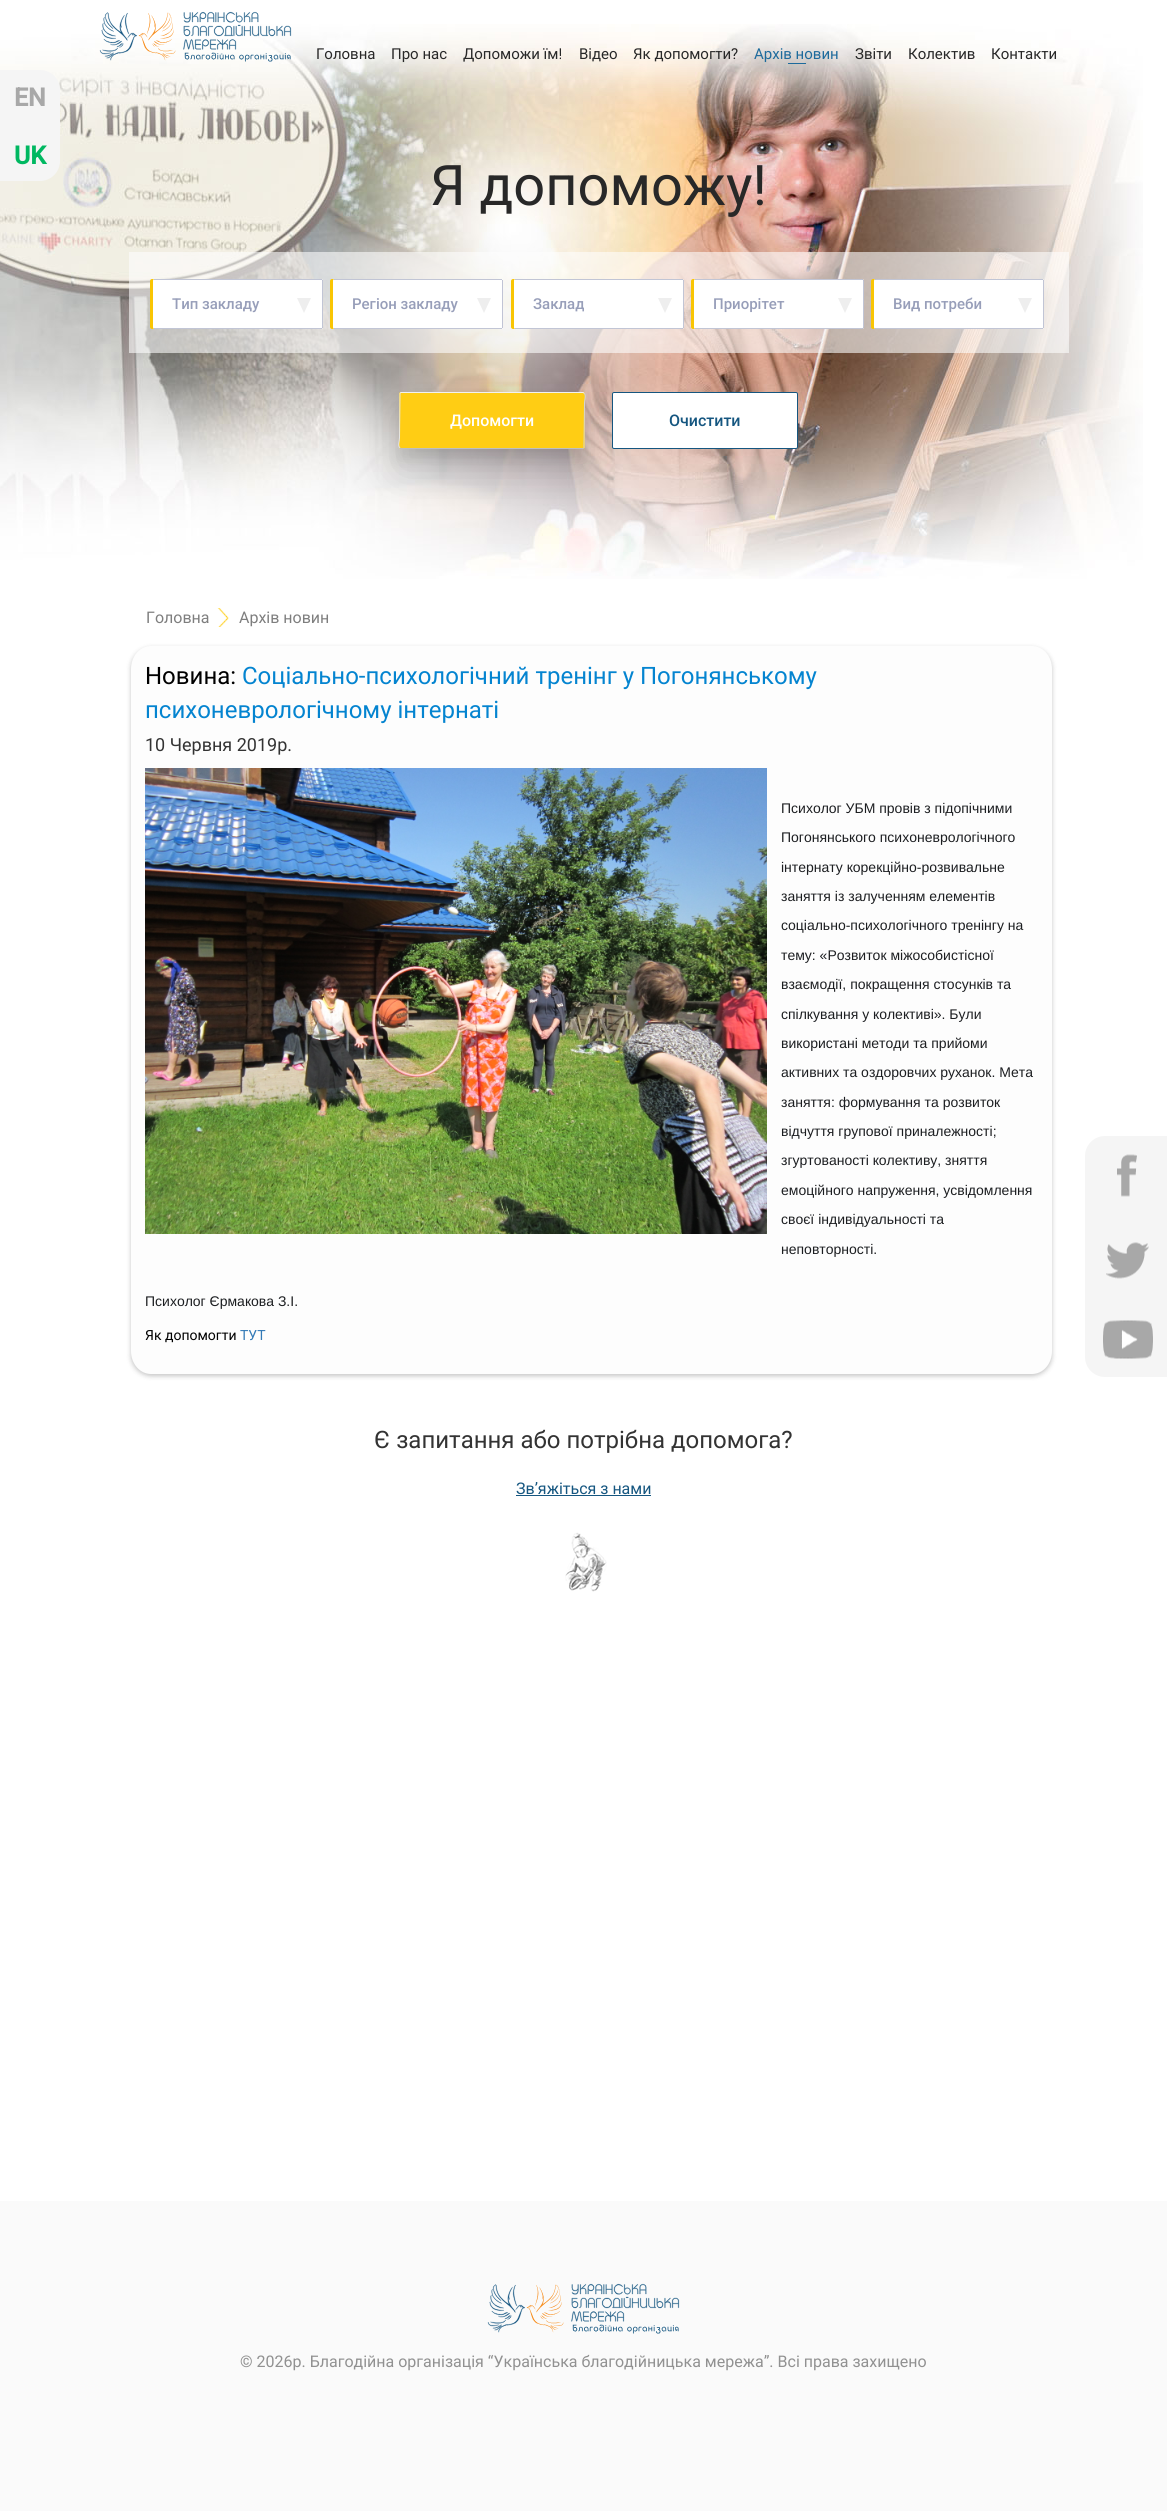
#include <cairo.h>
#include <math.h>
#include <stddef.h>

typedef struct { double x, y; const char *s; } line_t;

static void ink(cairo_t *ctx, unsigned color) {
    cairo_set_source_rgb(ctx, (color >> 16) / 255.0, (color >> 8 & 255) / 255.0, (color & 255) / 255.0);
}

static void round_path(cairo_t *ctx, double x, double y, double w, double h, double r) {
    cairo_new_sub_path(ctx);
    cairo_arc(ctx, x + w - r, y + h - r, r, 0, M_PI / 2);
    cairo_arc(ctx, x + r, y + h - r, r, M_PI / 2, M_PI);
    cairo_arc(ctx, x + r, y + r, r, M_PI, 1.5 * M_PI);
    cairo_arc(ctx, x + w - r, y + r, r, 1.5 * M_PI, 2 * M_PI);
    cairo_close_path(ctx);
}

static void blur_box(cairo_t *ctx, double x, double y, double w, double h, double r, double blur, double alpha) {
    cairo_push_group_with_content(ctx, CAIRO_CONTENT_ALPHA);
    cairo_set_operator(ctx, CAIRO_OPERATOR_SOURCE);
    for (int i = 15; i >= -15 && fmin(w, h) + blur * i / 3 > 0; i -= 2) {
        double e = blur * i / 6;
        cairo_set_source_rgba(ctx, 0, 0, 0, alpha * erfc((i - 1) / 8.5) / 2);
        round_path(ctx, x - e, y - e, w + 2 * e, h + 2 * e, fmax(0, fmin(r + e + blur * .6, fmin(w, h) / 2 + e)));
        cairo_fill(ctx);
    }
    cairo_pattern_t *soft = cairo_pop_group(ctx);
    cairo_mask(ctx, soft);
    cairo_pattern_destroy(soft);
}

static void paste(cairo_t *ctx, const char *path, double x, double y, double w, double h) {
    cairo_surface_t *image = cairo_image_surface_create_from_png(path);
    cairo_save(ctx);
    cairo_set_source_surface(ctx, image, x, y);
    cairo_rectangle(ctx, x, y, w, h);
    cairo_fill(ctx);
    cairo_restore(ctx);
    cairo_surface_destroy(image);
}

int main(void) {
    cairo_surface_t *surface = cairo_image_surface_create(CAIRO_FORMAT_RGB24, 1167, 2511);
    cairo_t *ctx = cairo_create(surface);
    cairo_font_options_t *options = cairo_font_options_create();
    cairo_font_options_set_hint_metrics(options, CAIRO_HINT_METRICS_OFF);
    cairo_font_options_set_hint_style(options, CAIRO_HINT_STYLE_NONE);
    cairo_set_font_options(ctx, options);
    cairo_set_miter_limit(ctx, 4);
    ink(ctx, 0xFFFFFF);
    cairo_paint(ctx);
    paste(ctx, "media/1.png", 0, 24, 1143, 555);
    ink(ctx, 0xF5F5F5);
    cairo_new_path(ctx);
    cairo_move_to(ctx, 0, 70);
    cairo_line_to(ctx, 40, 70);
    cairo_curve_to(ctx, 51, 70, 60, 79, 60, 90);
    cairo_line_to(ctx, 60, 161);
    cairo_curve_to(ctx, 60, 172, 51, 181, 40, 181);
    cairo_line_to(ctx, 0, 181);
    cairo_close_path(ctx);
    cairo_fill(ctx);
    cairo_select_font_face(ctx, "Roboto", CAIRO_FONT_SLANT_NORMAL, CAIRO_FONT_WEIGHT_BOLD);
    cairo_set_font_size(ctx, 25);
    ink(ctx, 0xA8A8A8);
    cairo_move_to(ctx, 14, 106);
    cairo_show_text(ctx, "EN");
    ink(ctx, 0x00B861);
    cairo_move_to(ctx, 14, 164);
    cairo_show_text(ctx, "UK");
    paste(ctx, "media/2.png", 99, 11, 193, 51);
    cairo_select_font_face(ctx, "Roboto", CAIRO_FONT_SLANT_NORMAL, CAIRO_FONT_WEIGHT_NORMAL);
    cairo_set_font_size(ctx, 15);
    ink(ctx, 0x282828);
    {
        static const line_t items[] = {
            {316, 59, "Головна"},
            {391, 59, "Про нас"},
            {463, 59, "Допоможи їм!"},
            {579, 59, "Відео"},
            {633, 59, "Як допомогти?"},
        };
        for (size_t i = 0; i < sizeof items / sizeof *items; i++) {
            cairo_move_to(ctx, items[i].x, items[i].y);
            cairo_show_text(ctx, items[i].s);
        }
    }
    ink(ctx, 0x1D6A9C);
    cairo_move_to(ctx, 754, 59);
    cairo_show_text(ctx, "Архів новин");
    cairo_rectangle(ctx, 788, 63, 18, 1);
    cairo_fill(ctx);
    ink(ctx, 0x282828);
    {
        static const line_t items[] = {
            {855, 59, "Звіти"},
            {908, 59, "Колектив"},
            {991, 59, "Контакти"},
        };
        for (size_t i = 0; i < sizeof items / sizeof *items; i++) {
            cairo_move_to(ctx, items[i].x, items[i].y);
            cairo_show_text(ctx, items[i].s);
        }
    }
    cairo_set_font_size(ctx, 56);
    cairo_move_to(ctx, 430, 205);
    cairo_show_text(ctx, "Я допоможу!");
    cairo_set_source_rgba(ctx, 0.996, 0.996, 0.996, 0.59);
    cairo_rectangle(ctx, 129, 252, 940, 101);
    cairo_fill(ctx);
    ink(ctx, 0xF9C503);
    cairo_new_path(ctx);
    cairo_move_to(ctx, 152, 279);
    cairo_curve_to(ctx, 151, 279, 150, 280, 150, 281);
    cairo_line_to(ctx, 150, 327);
    cairo_curve_to(ctx, 150, 328, 151, 329, 152, 329);
    cairo_line_to(ctx, 155, 329);
    cairo_curve_to(ctx, 154, 329, 153, 328, 153, 327);
    cairo_line_to(ctx, 153, 281);
    cairo_curve_to(ctx, 153, 280, 154, 279, 155, 279);
    cairo_close_path(ctx);
    cairo_fill(ctx);
    ink(ctx, 0xFFFFFF);
    round_path(ctx, 153, 279, 170, 50, 2);
    cairo_fill(ctx);
    cairo_set_source_rgba(ctx, 0.184, 0.235, 0.447, 0.3);
    cairo_rectangle(ctx, 154, 279, 168, 1);
    cairo_fill(ctx);
    cairo_rectangle(ctx, 322, 280, 1, 48);
    cairo_fill(ctx);
    cairo_rectangle(ctx, 154, 328, 168, 1);
    cairo_fill(ctx);
    cairo_select_font_face(ctx, "Roboto Medium", CAIRO_FONT_SLANT_NORMAL, CAIRO_FONT_WEIGHT_NORMAL);
    cairo_set_font_size(ctx, 15);
    ink(ctx, 0x979EB9);
    cairo_move_to(ctx, 172, 309);
    cairo_show_text(ctx, "Тип закладу");
    ink(ctx, 0xEEEEEE);
    cairo_new_path(ctx);
    cairo_move_to(ctx, 297, 298);
    cairo_line_to(ctx, 311, 298);
    cairo_line_to(ctx, 304, 313);
    cairo_close_path(ctx);
    cairo_fill(ctx);
    ink(ctx, 0xF9C503);
    cairo_new_path(ctx);
    cairo_move_to(ctx, 332, 279);
    cairo_curve_to(ctx, 331, 279, 330, 280, 330, 281);
    cairo_line_to(ctx, 330, 327);
    cairo_curve_to(ctx, 330, 328, 331, 329, 332, 329);
    cairo_line_to(ctx, 335, 329);
    cairo_curve_to(ctx, 334, 329, 333, 328, 333, 327);
    cairo_line_to(ctx, 333, 281);
    cairo_curve_to(ctx, 333, 280, 334, 279, 335, 279);
    cairo_close_path(ctx);
    cairo_fill(ctx);
    ink(ctx, 0xFFFFFF);
    round_path(ctx, 333, 279, 170, 50, 2);
    cairo_fill(ctx);
    cairo_set_source_rgba(ctx, 0.184, 0.235, 0.447, 0.3);
    cairo_rectangle(ctx, 334, 279, 168, 1);
    cairo_fill(ctx);
    ink(ctx, 0xC1C4D5);
    cairo_rectangle(ctx, 502, 280, 1, 48);
    cairo_fill(ctx);
    cairo_set_source_rgba(ctx, 0.184, 0.235, 0.447, 0.3);
    cairo_rectangle(ctx, 334, 328, 168, 1);
    cairo_fill(ctx);
    ink(ctx, 0x979EB9);
    cairo_move_to(ctx, 352, 309);
    cairo_show_text(ctx, "Регіон закладу");
    ink(ctx, 0xEEEEEE);
    cairo_new_path(ctx);
    cairo_move_to(ctx, 477, 298);
    cairo_line_to(ctx, 491, 298);
    cairo_line_to(ctx, 484, 313);
    cairo_close_path(ctx);
    cairo_fill(ctx);
    ink(ctx, 0xF9C503);
    cairo_new_path(ctx);
    cairo_move_to(ctx, 513, 279);
    cairo_curve_to(ctx, 512, 279, 511, 280, 511, 281);
    cairo_line_to(ctx, 511, 327);
    cairo_curve_to(ctx, 511, 328, 512, 329, 513, 329);
    cairo_line_to(ctx, 516, 329);
    cairo_curve_to(ctx, 515, 329, 514, 328, 514, 327);
    cairo_line_to(ctx, 514, 281);
    cairo_curve_to(ctx, 514, 280, 515, 279, 516, 279);
    cairo_close_path(ctx);
    cairo_fill(ctx);
    ink(ctx, 0xFFFFFF);
    round_path(ctx, 514, 279, 170, 50, 2);
    cairo_fill(ctx);
    cairo_set_source_rgba(ctx, 0.184, 0.235, 0.447, 0.3);
    cairo_rectangle(ctx, 515, 279, 168, 1);
    cairo_fill(ctx);
    cairo_rectangle(ctx, 683, 280, 1, 48);
    cairo_fill(ctx);
    cairo_rectangle(ctx, 515, 328, 168, 1);
    cairo_fill(ctx);
    ink(ctx, 0x979EB9);
    cairo_move_to(ctx, 533, 309);
    cairo_show_text(ctx, "Заклад");
    ink(ctx, 0xEEEEEE);
    cairo_new_path(ctx);
    cairo_move_to(ctx, 658, 298);
    cairo_line_to(ctx, 672, 298);
    cairo_line_to(ctx, 665, 313);
    cairo_close_path(ctx);
    cairo_fill(ctx);
    ink(ctx, 0xF9C503);
    cairo_new_path(ctx);
    cairo_move_to(ctx, 693, 279);
    cairo_curve_to(ctx, 692, 279, 691, 280, 691, 281);
    cairo_line_to(ctx, 691, 327);
    cairo_curve_to(ctx, 691, 328, 692, 329, 693, 329);
    cairo_line_to(ctx, 696, 329);
    cairo_curve_to(ctx, 695, 329, 694, 328, 694, 327);
    cairo_line_to(ctx, 694, 281);
    cairo_curve_to(ctx, 694, 280, 695, 279, 696, 279);
    cairo_close_path(ctx);
    cairo_fill(ctx);
    ink(ctx, 0xFFFFFF);
    round_path(ctx, 694, 279, 170, 50, 2);
    cairo_fill(ctx);
    cairo_set_source_rgba(ctx, 0.184, 0.235, 0.447, 0.3);
    cairo_rectangle(ctx, 695, 279, 168, 1);
    cairo_fill(ctx);
    cairo_rectangle(ctx, 863, 280, 1, 48);
    cairo_fill(ctx);
    cairo_rectangle(ctx, 695, 328, 168, 1);
    cairo_fill(ctx);
    ink(ctx, 0x979EB9);
    cairo_move_to(ctx, 713, 309);
    cairo_show_text(ctx, "Приорітет");
    ink(ctx, 0xEEEEEE);
    cairo_new_path(ctx);
    cairo_move_to(ctx, 838, 298);
    cairo_line_to(ctx, 852, 298);
    cairo_line_to(ctx, 845, 313);
    cairo_close_path(ctx);
    cairo_fill(ctx);
    ink(ctx, 0xF9C503);
    cairo_new_path(ctx);
    cairo_move_to(ctx, 873, 279);
    cairo_curve_to(ctx, 872, 279, 871, 280, 871, 281);
    cairo_line_to(ctx, 871, 327);
    cairo_curve_to(ctx, 871, 328, 872, 329, 873, 329);
    cairo_line_to(ctx, 876, 329);
    cairo_curve_to(ctx, 875, 329, 874, 328, 874, 327);
    cairo_line_to(ctx, 874, 281);
    cairo_curve_to(ctx, 874, 280, 875, 279, 876, 279);
    cairo_close_path(ctx);
    cairo_fill(ctx);
    ink(ctx, 0xFFFFFF);
    round_path(ctx, 874, 279, 170, 50, 2);
    cairo_fill(ctx);
    cairo_set_source_rgba(ctx, 0.184, 0.235, 0.447, 0.3);
    cairo_rectangle(ctx, 875, 279, 168, 1);
    cairo_fill(ctx);
    cairo_rectangle(ctx, 1043, 280, 1, 48);
    cairo_fill(ctx);
    cairo_rectangle(ctx, 875, 328, 168, 1);
    cairo_fill(ctx);
    ink(ctx, 0x979EB9);
    cairo_move_to(ctx, 893, 309);
    cairo_show_text(ctx, "Вид потреби");
    ink(ctx, 0xEEEEEE);
    cairo_new_path(ctx);
    cairo_move_to(ctx, 1018, 298);
    cairo_line_to(ctx, 1032, 298);
    cairo_line_to(ctx, 1025, 313);
    cairo_close_path(ctx);
    cairo_fill(ctx);
    ink(ctx, 0x000000);
    blur_box(ctx, 399, 402, 186, 57, 2, 7.5, 0.1);
    blur_box(ctx, 399, 412, 186, 57, 2, 20, 0.13);
    ink(ctx, 0xFFCD14);
    round_path(ctx, 399, 392, 186, 57, 2);
    cairo_fill(ctx);
    cairo_new_path(ctx);
    cairo_move_to(ctx, 400, 393);
    cairo_line_to(ctx, 401, 392.5);
    cairo_line_to(ctx, 583, 392.5);
    cairo_line_to(ctx, 584, 393);
    ink(ctx, 0xF1F1F1);
    cairo_set_line_width(ctx, 1);
    cairo_stroke(ctx);
    cairo_new_path(ctx);
    cairo_move_to(ctx, 584, 393);
    cairo_curve_to(ctx, 586.5, 395.5, 584.5, 399.5, 584.5, 403);
    cairo_line_to(ctx, 584, 448);
    ink(ctx, 0xD4D4D4);
    cairo_stroke(ctx);
    cairo_new_path(ctx);
    cairo_move_to(ctx, 584, 448);
    cairo_line_to(ctx, 583, 448.5);
    cairo_line_to(ctx, 401, 448.5);
    cairo_line_to(ctx, 400, 448);
    ink(ctx, 0xBFBFBF);
    cairo_stroke(ctx);
    cairo_new_path(ctx);
    cairo_move_to(ctx, 400, 448);
    cairo_curve_to(ctx, 397.5, 445.5, 399.5, 441.5, 399.5, 438);
    cairo_line_to(ctx, 400, 393);
    ink(ctx, 0xE5E5E5);
    cairo_stroke(ctx);
    cairo_set_font_size(ctx, 16);
    ink(ctx, 0xFFFFFF);
    cairo_move_to(ctx, 450, 426);
    cairo_show_text(ctx, "Допомогти");
    round_path(ctx, 612.5, 392.5, 185, 56, 1.5);
    cairo_fill_preserve(ctx);
    ink(ctx, 0x155680);
    cairo_stroke(ctx);
    cairo_move_to(ctx, 669, 426);
    cairo_show_text(ctx, "Очистити");
    cairo_select_font_face(ctx, "Roboto", CAIRO_FONT_SLANT_NORMAL, CAIRO_FONT_WEIGHT_NORMAL);
    ink(ctx, 0x7E7E7E);
    cairo_move_to(ctx, 146, 623);
    cairo_show_text(ctx, "Головна");
    paste(ctx, "media/3.png", 217, 608, 12, 19);
    cairo_move_to(ctx, 239, 623);
    cairo_show_text(ctx, "Архів новин");
    ink(ctx, 0x000000);
    blur_box(ctx, 131, 648, 921, 728, 20, 2.5, 0.23);
    ink(ctx, 0xFDFDFD);
    cairo_new_path(ctx);
    cairo_move_to(ctx, 151, 646);
    cairo_line_to(ctx, 1032, 646);
    cairo_curve_to(ctx, 1043, 646, 1052, 656, 1052, 669);
    cairo_line_to(ctx, 1052, 1351);
    cairo_curve_to(ctx, 1052, 1364, 1043, 1374, 1032, 1374);
    cairo_line_to(ctx, 151, 1374);
    cairo_curve_to(ctx, 140, 1374, 131, 1364, 131, 1351);
    cairo_line_to(ctx, 131, 669);
    cairo_curve_to(ctx, 131, 656, 140, 646, 151, 646);
    cairo_close_path(ctx);
    cairo_fill(ctx);
    cairo_set_font_size(ctx, 24);
    ink(ctx, 0x000000);
    cairo_move_to(ctx, 145, 684);
    cairo_show_text(ctx, "Новина:");
    ink(ctx, 0x0484D0);
    cairo_move_to(ctx, 242, 684);
    cairo_show_text(ctx, "Соціально-психологічний тренінг у Погонянському");
    cairo_move_to(ctx, 145, 718);
    cairo_show_text(ctx, "психоневрологічному інтернаті");
    cairo_set_font_size(ctx, 18);
    ink(ctx, 0x333333);
    cairo_move_to(ctx, 145, 751);
    cairo_show_text(ctx, "10 Червня 2019р.");
    paste(ctx, "media/4.png", 145, 768, 622, 466);
    cairo_select_font_face(ctx, "Liberation Sans", CAIRO_FONT_SLANT_NORMAL, CAIRO_FONT_WEIGHT_NORMAL);
    cairo_set_font_size(ctx, 14);
    ink(ctx, 0x1C1E21);
    {
        static const line_t items[] = {
            {781, 813, "Психолог УБМ провів з підопічними"},
            {781, 842, "Погонянського психоневрологічного"},
            {781, 872, "інтернату корекційно-розвивальне"},
            {781, 901, "заняття із залученням елементів"},
            {781, 930, "соціально-психологічного тренінгу на"},
            {781, 960, "тему: «Розвиток міжособистісної"},
            {781, 989, "взаємодії, покращення стосунків та"},
            {781, 1019, "спілкування у колективі». Були"},
            {781, 1048, "використані методи та прийоми"},
            {781, 1077, "активних та оздоровчих руханок. Мета"},
            {781, 1107, "заняття: формування та розвиток"},
            {781, 1136, "відчуття групової приналежності;"},
            {781, 1165, "згуртованості колективу, зняття"},
            {781, 1195, "емоційного напруження, усвідомлення"},
            {781, 1224, "своєї індивідуальності та"},
            {781, 1254, "неповторності."},
            {145, 1306, "Психолог Єрмакова З.І."},
        };
        for (size_t i = 0; i < sizeof items / sizeof *items; i++) {
            cairo_move_to(ctx, items[i].x, items[i].y);
            cairo_show_text(ctx, items[i].s);
        }
    }
    cairo_select_font_face(ctx, "Roboto", CAIRO_FONT_SLANT_NORMAL, CAIRO_FONT_WEIGHT_NORMAL);
    ink(ctx, 0x000000);
    cairo_move_to(ctx, 145, 1340);
    cairo_show_text(ctx, "Як допомогти");
    ink(ctx, 0x337AB7);
    cairo_move_to(ctx, 240, 1340);
    cairo_show_text(ctx, "ТУТ");
    cairo_set_font_size(ctx, 24);
    ink(ctx, 0x333333);
    cairo_move_to(ctx, 374, 1448);
    cairo_show_text(ctx, "Є запитання або потрібна допомога?");
    cairo_set_font_size(ctx, 16);
    ink(ctx, 0x155680);
    cairo_move_to(ctx, 516, 1494);
    cairo_show_text(ctx, "Зв’яжіться з нами");
    cairo_rectangle(ctx, 516, 1495, 135, 1);
    cairo_fill(ctx);
    paste(ctx, "media/5.png", 565, 1532, 42, 60);
    ink(ctx, 0xF5F5F5);
    cairo_new_path(ctx);
    cairo_move_to(ctx, 1105, 1136);
    cairo_line_to(ctx, 1167, 1136);
    cairo_line_to(ctx, 1167, 1377);
    cairo_line_to(ctx, 1105, 1377);
    cairo_curve_to(ctx, 1094, 1377, 1085, 1368, 1085, 1357);
    cairo_line_to(ctx, 1085, 1156);
    cairo_curve_to(ctx, 1085, 1145, 1094, 1136, 1105, 1136);
    cairo_close_path(ctx);
    cairo_fill(ctx);
    paste(ctx, "media/6.png", 1117, 1154, 20, 43);
    paste(ctx, "media/7.png", 1106, 1242, 43, 37);
    paste(ctx, "media/8.png", 1103, 1320, 50, 39);
    ink(ctx, 0xFAFAFA);
    cairo_rectangle(ctx, 0, 2201, 1167, 310);
    cairo_fill(ctx);
    paste(ctx, "media/9.png", 487, 2283, 193, 51);
    ink(ctx, 0x919191);
    cairo_move_to(ctx, 240, 2367);
    cairo_show_text(ctx, "© 2026р. Благодійна організація “Українська благодійницька мережа”. Всі права захищено");
    cairo_surface_write_to_png(surface, "image.png");
    cairo_font_options_destroy(options);
    cairo_destroy(ctx);
    cairo_surface_destroy(surface);
    return 0;
}
